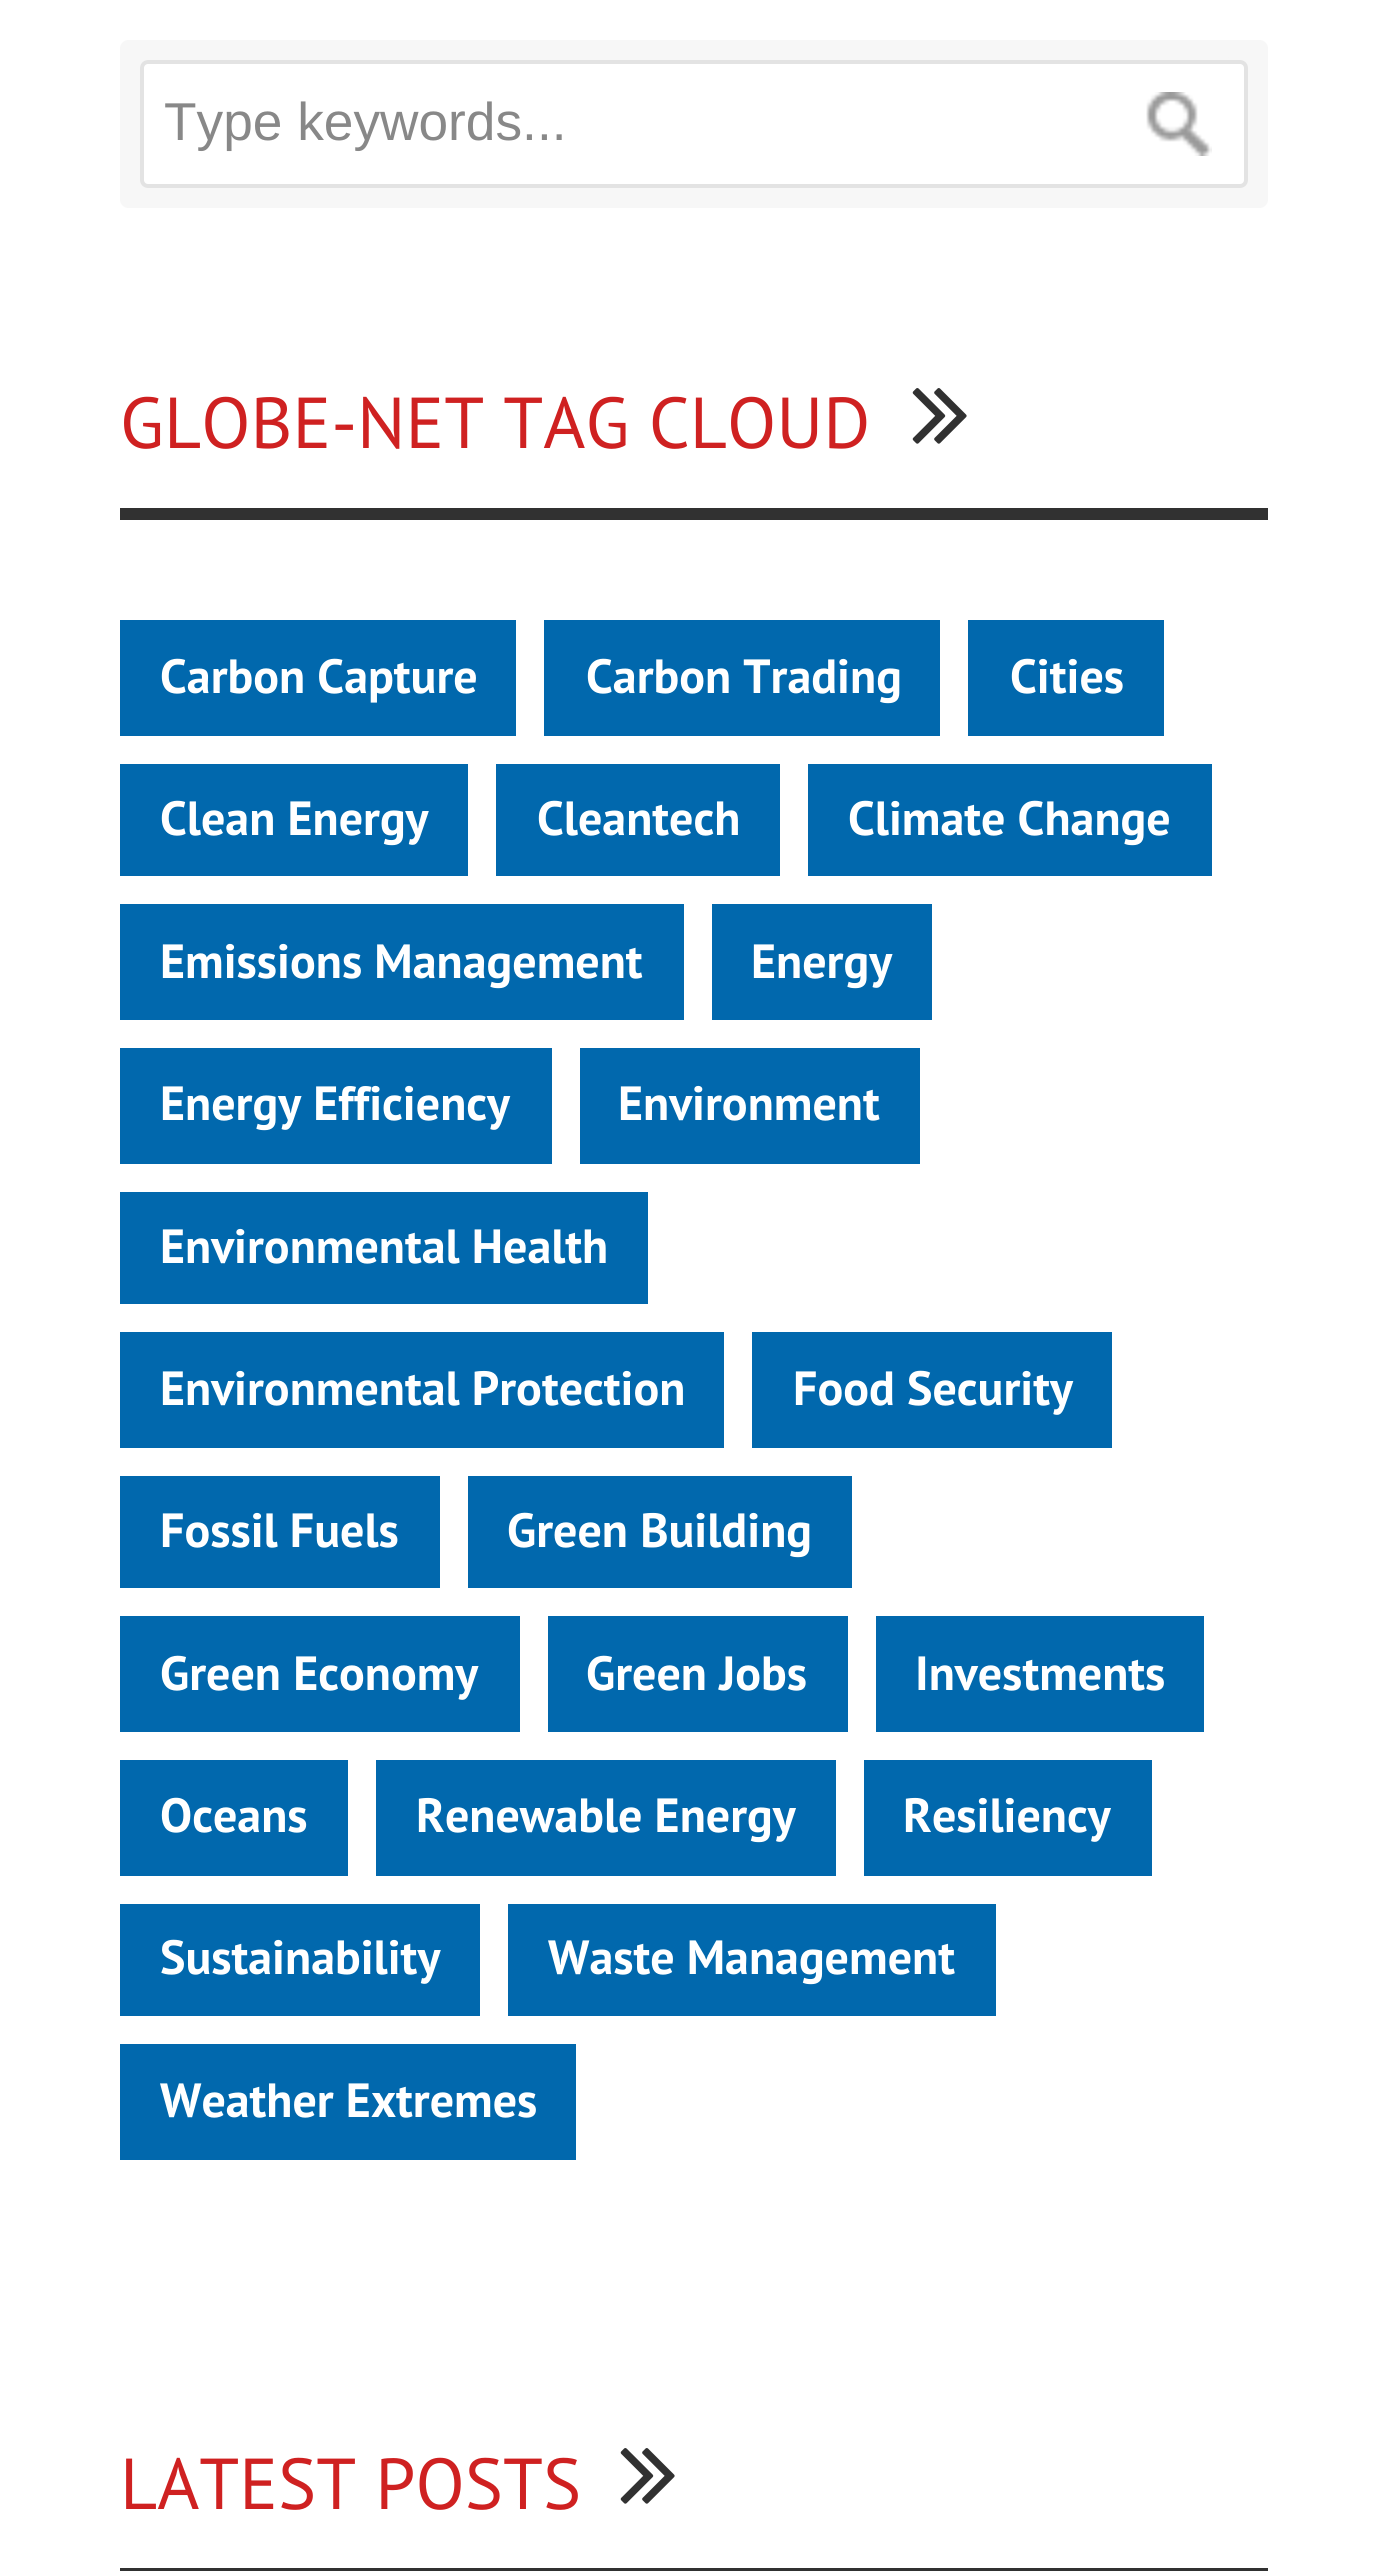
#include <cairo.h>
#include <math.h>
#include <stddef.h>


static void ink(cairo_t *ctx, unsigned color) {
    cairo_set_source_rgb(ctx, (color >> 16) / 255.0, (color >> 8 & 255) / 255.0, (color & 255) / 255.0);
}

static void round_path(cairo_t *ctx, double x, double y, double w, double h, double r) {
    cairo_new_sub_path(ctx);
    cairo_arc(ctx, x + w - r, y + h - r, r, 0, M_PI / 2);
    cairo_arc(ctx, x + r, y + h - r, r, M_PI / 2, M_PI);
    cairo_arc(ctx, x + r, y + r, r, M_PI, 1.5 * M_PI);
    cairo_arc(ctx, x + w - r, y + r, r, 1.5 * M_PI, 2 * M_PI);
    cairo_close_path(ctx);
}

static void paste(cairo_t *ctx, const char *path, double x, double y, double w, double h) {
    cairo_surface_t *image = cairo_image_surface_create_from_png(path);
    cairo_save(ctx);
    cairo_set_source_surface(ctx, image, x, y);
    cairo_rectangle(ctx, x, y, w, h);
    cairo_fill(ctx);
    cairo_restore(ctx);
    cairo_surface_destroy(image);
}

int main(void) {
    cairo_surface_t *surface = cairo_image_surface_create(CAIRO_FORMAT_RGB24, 1385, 2571);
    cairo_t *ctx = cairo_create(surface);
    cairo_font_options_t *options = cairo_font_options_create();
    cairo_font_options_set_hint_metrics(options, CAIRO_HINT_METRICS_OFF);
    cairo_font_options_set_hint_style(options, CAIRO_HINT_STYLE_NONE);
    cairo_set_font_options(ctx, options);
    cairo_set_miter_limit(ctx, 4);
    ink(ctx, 0xFFFFFF);
    cairo_paint(ctx);
    ink(ctx, 0xF7F7F7);
    cairo_new_path(ctx);
    cairo_move_to(ctx, 128, 80);
    cairo_curve_to(ctx, 124, 80, 120, 84, 120, 88);
    cairo_line_to(ctx, 120, 200);
    cairo_curve_to(ctx, 120, 204, 124, 208, 128, 208);
    cairo_line_to(ctx, 1220, 208);
    cairo_curve_to(ctx, 1224, 208, 1228, 204, 1228, 200);
    cairo_line_to(ctx, 1228, 188);
    cairo_line_to(ctx, 148, 188);
    cairo_curve_to(ctx, 144, 188, 140, 184, 140, 180);
    cairo_line_to(ctx, 140, 80);
    cairo_close_path(ctx);
    cairo_fill(ctx);
    cairo_new_path(ctx);
    cairo_move_to(ctx, 168, 40);
    cairo_curve_to(ctx, 158, 40, 160, 53, 160, 60);
    cairo_line_to(ctx, 1240, 60);
    cairo_curve_to(ctx, 1244, 60, 1248, 64, 1248, 68);
    cairo_line_to(ctx, 1248, 168);
    cairo_line_to(ctx, 1260, 168);
    cairo_curve_to(ctx, 1264, 168, 1268, 164, 1268, 160);
    cairo_line_to(ctx, 1268, 48);
    cairo_curve_to(ctx, 1268, 44, 1264, 40, 1260, 40);
    cairo_close_path(ctx);
    cairo_fill(ctx);
    cairo_new_path(ctx);
    cairo_move_to(ctx, 140, 180);
    cairo_line_to(ctx, 140, 200);
    cairo_curve_to(ctx, 140, 204, 144, 208, 148, 208);
    cairo_line_to(ctx, 1240, 208);
    cairo_curve_to(ctx, 1244, 208, 1248, 204, 1248, 200);
    cairo_line_to(ctx, 1248, 180);
    cairo_curve_to(ctx, 1248, 184, 1244, 188, 1240, 188);
    cairo_line_to(ctx, 148, 188);
    cairo_curve_to(ctx, 144, 188, 140, 184, 140, 180);
    cairo_close_path(ctx);
    cairo_fill(ctx);
    cairo_new_path(ctx);
    cairo_move_to(ctx, 1240, 188);
    cairo_line_to(ctx, 1260, 188);
    cairo_curve_to(ctx, 1264, 188, 1268, 184, 1268, 180);
    cairo_line_to(ctx, 1268, 68);
    cairo_curve_to(ctx, 1268, 64, 1264, 60, 1260, 60);
    cairo_line_to(ctx, 1240, 60);
    cairo_curve_to(ctx, 1244, 60, 1248, 64, 1248, 68);
    cairo_line_to(ctx, 1248, 180);
    cairo_curve_to(ctx, 1248, 184, 1244, 188, 1240, 188);
    cairo_close_path(ctx);
    cairo_fill(ctx);
    cairo_new_path(ctx);
    cairo_move_to(ctx, 160, 188);
    cairo_line_to(ctx, 160, 200);
    cairo_curve_to(ctx, 160, 204, 164, 208, 168, 208);
    cairo_line_to(ctx, 1260, 208);
    cairo_curve_to(ctx, 1264, 208, 1268, 204, 1268, 200);
    cairo_line_to(ctx, 1268, 88);
    cairo_curve_to(ctx, 1268, 84, 1264, 80, 1260, 80);
    cairo_line_to(ctx, 1248, 80);
    cairo_line_to(ctx, 1248, 180);
    cairo_curve_to(ctx, 1248, 184, 1244, 188, 1240, 188);
    cairo_close_path(ctx);
    cairo_fill(ctx);
    cairo_new_path(ctx);
    cairo_move_to(ctx, 128, 40);
    cairo_curve_to(ctx, 124, 40, 120, 44, 120, 48);
    cairo_line_to(ctx, 120, 160);
    cairo_curve_to(ctx, 120, 164, 124, 168, 128, 168);
    cairo_line_to(ctx, 140, 168);
    cairo_line_to(ctx, 140, 68);
    cairo_curve_to(ctx, 140, 64, 144, 60, 148, 60);
    cairo_line_to(ctx, 1228, 60);
    cairo_curve_to(ctx, 1228, 53, 1230, 40, 1220, 40);
    cairo_close_path(ctx);
    cairo_fill(ctx);
    ink(ctx, 0xFFFFFF);
    round_path(ctx, 142, 62, 1104, 124, 6);
    cairo_fill_preserve(ctx);
    ink(ctx, 0xE3E3E3);
    cairo_set_line_width(ctx, 4);
    cairo_stroke(ctx);
    cairo_select_font_face(ctx, "Liberation Sans", CAIRO_FONT_SLANT_NORMAL, CAIRO_FONT_WEIGHT_NORMAL);
    cairo_set_font_size(ctx, 53.25);
    ink(ctx, 0x888888);
    cairo_move_to(ctx, 164, 140);
    cairo_show_text(ctx, "Type keywords...");
    paste(ctx, "media/1.png", 1146, 92, 66, 64);
    ink(ctx, 0x313131);
    cairo_rectangle(ctx, 120, 508, 1148, 12);
    cairo_fill(ctx);
    cairo_select_font_face(ctx, "PT Sans", CAIRO_FONT_SLANT_NORMAL, CAIRO_FONT_WEIGHT_NORMAL);
    cairo_set_font_size(ctx, 72);
    ink(ctx, 0xCF2121);
    cairo_move_to(ctx, 120, 448);
    cairo_show_text(ctx, "GLOBE-NET TAG CLOUD");
    paste(ctx, "media/2.png", 912, 388, 55, 56);
    ink(ctx, 0x0168AD);
    cairo_rectangle(ctx, 120, 620, 396, 116);
    cairo_fill(ctx);
    cairo_select_font_face(ctx, "PT Sans", CAIRO_FONT_SLANT_NORMAL, CAIRO_FONT_WEIGHT_BOLD);
    cairo_set_font_size(ctx, 48);
    ink(ctx, 0xFFFFFF);
    cairo_move_to(ctx, 160, 693);
    cairo_show_text(ctx, "Carbon Capture");
    ink(ctx, 0x0168AD);
    cairo_rectangle(ctx, 544, 620, 396, 116);
    cairo_fill(ctx);
    ink(ctx, 0xFFFFFF);
    cairo_move_to(ctx, 586, 693);
    cairo_show_text(ctx, "Carbon Trading");
    ink(ctx, 0x0168AD);
    cairo_rectangle(ctx, 968, 620, 196, 116);
    cairo_fill(ctx);
    ink(ctx, 0xFFFFFF);
    cairo_move_to(ctx, 1010, 693);
    cairo_show_text(ctx, "Cities");
    ink(ctx, 0x0168AD);
    cairo_rectangle(ctx, 120, 764, 348, 112);
    cairo_fill(ctx);
    ink(ctx, 0xFFFFFF);
    cairo_move_to(ctx, 160, 835);
    cairo_show_text(ctx, "Clean Energy");
    ink(ctx, 0x0168AD);
    cairo_rectangle(ctx, 496, 764, 284, 112);
    cairo_fill(ctx);
    ink(ctx, 0xFFFFFF);
    cairo_move_to(ctx, 537, 835);
    cairo_show_text(ctx, "Cleantech");
    ink(ctx, 0x0168AD);
    cairo_rectangle(ctx, 808, 764, 404, 112);
    cairo_fill(ctx);
    ink(ctx, 0xFFFFFF);
    cairo_move_to(ctx, 848, 835);
    cairo_show_text(ctx, "Climate Change");
    ink(ctx, 0x0168AD);
    cairo_rectangle(ctx, 120, 904, 564, 116);
    cairo_fill(ctx);
    ink(ctx, 0xFFFFFF);
    cairo_move_to(ctx, 160, 978);
    cairo_show_text(ctx, "Emissions Management");
    ink(ctx, 0x0168AD);
    cairo_rectangle(ctx, 712, 904, 220, 116);
    cairo_fill(ctx);
    ink(ctx, 0xFFFFFF);
    cairo_move_to(ctx, 751, 978);
    cairo_show_text(ctx, "Energy");
    ink(ctx, 0x0168AD);
    cairo_rectangle(ctx, 120, 1048, 432, 116);
    cairo_fill(ctx);
    ink(ctx, 0xFFFFFF);
    cairo_move_to(ctx, 160, 1120);
    cairo_show_text(ctx, "Energy Efficiency");
    ink(ctx, 0x0168AD);
    cairo_rectangle(ctx, 580, 1048, 340, 116);
    cairo_fill(ctx);
    ink(ctx, 0xFFFFFF);
    cairo_move_to(ctx, 618, 1120);
    cairo_show_text(ctx, "Environment");
    ink(ctx, 0x0168AD);
    cairo_rectangle(ctx, 120, 1192, 528, 112);
    cairo_fill(ctx);
    ink(ctx, 0xFFFFFF);
    cairo_move_to(ctx, 160, 1263);
    cairo_show_text(ctx, "Environmental Health");
    ink(ctx, 0x0168AD);
    cairo_rectangle(ctx, 120, 1332, 604, 116);
    cairo_fill(ctx);
    ink(ctx, 0xFFFFFF);
    cairo_move_to(ctx, 160, 1405);
    cairo_show_text(ctx, "Environmental Protection");
    ink(ctx, 0x0168AD);
    cairo_rectangle(ctx, 752, 1332, 360, 116);
    cairo_fill(ctx);
    ink(ctx, 0xFFFFFF);
    cairo_move_to(ctx, 793, 1405);
    cairo_show_text(ctx, "Food Security");
    ink(ctx, 0x0168AD);
    cairo_rectangle(ctx, 120, 1476, 320, 112);
    cairo_fill(ctx);
    ink(ctx, 0xFFFFFF);
    cairo_move_to(ctx, 160, 1547);
    cairo_show_text(ctx, "Fossil Fuels");
    ink(ctx, 0x0168AD);
    cairo_rectangle(ctx, 468, 1476, 384, 112);
    cairo_fill(ctx);
    ink(ctx, 0xFFFFFF);
    cairo_move_to(ctx, 507, 1547);
    cairo_show_text(ctx, "Green Building");
    ink(ctx, 0x0168AD);
    cairo_rectangle(ctx, 120, 1616, 400, 116);
    cairo_fill(ctx);
    ink(ctx, 0xFFFFFF);
    cairo_move_to(ctx, 160, 1690);
    cairo_show_text(ctx, "Green Economy");
    ink(ctx, 0x0168AD);
    cairo_rectangle(ctx, 548, 1616, 300, 116);
    cairo_fill(ctx);
    ink(ctx, 0xFFFFFF);
    cairo_move_to(ctx, 586, 1690);
    cairo_show_text(ctx, "Green Jobs");
    ink(ctx, 0x0168AD);
    cairo_rectangle(ctx, 876, 1616, 328, 116);
    cairo_fill(ctx);
    ink(ctx, 0xFFFFFF);
    cairo_move_to(ctx, 915, 1690);
    cairo_show_text(ctx, "Investments");
    ink(ctx, 0x0168AD);
    cairo_rectangle(ctx, 120, 1760, 228, 116);
    cairo_fill(ctx);
    ink(ctx, 0xFFFFFF);
    cairo_move_to(ctx, 160, 1832);
    cairo_show_text(ctx, "Oceans");
    ink(ctx, 0x0168AD);
    cairo_rectangle(ctx, 376, 1760, 460, 116);
    cairo_fill(ctx);
    ink(ctx, 0xFFFFFF);
    cairo_move_to(ctx, 416, 1832);
    cairo_show_text(ctx, "Renewable Energy");
    ink(ctx, 0x0168AD);
    cairo_rectangle(ctx, 864, 1760, 288, 116);
    cairo_fill(ctx);
    ink(ctx, 0xFFFFFF);
    cairo_move_to(ctx, 903, 1832);
    cairo_show_text(ctx, "Resiliency");
    ink(ctx, 0x0168AD);
    cairo_rectangle(ctx, 120, 1904, 360, 112);
    cairo_fill(ctx);
    ink(ctx, 0xFFFFFF);
    cairo_move_to(ctx, 160, 1974);
    cairo_show_text(ctx, "Sustainability");
    ink(ctx, 0x0168AD);
    cairo_rectangle(ctx, 508, 1904, 488, 112);
    cairo_fill(ctx);
    ink(ctx, 0xFFFFFF);
    cairo_move_to(ctx, 548, 1974);
    cairo_show_text(ctx, "Waste Management");
    ink(ctx, 0x0168AD);
    cairo_rectangle(ctx, 120, 2044, 456, 116);
    cairo_fill(ctx);
    ink(ctx, 0xFFFFFF);
    cairo_move_to(ctx, 160, 2117);
    cairo_show_text(ctx, "Weather Extremes");
    ink(ctx, 0x313131);
    cairo_rectangle(ctx, 120, 2568, 1148, 3);
    cairo_fill(ctx);
    cairo_select_font_face(ctx, "PT Sans", CAIRO_FONT_SLANT_NORMAL, CAIRO_FONT_WEIGHT_NORMAL);
    cairo_set_font_size(ctx, 72);
    ink(ctx, 0xCF2121);
    cairo_move_to(ctx, 120, 2509);
    cairo_show_text(ctx, "LATEST POSTS");
    paste(ctx, "media/2.png", 620, 2448, 55, 56);
    cairo_surface_write_to_png(surface, "image.png");
    cairo_font_options_destroy(options);
    cairo_destroy(ctx);
    cairo_surface_destroy(surface);
    return 0;
}
